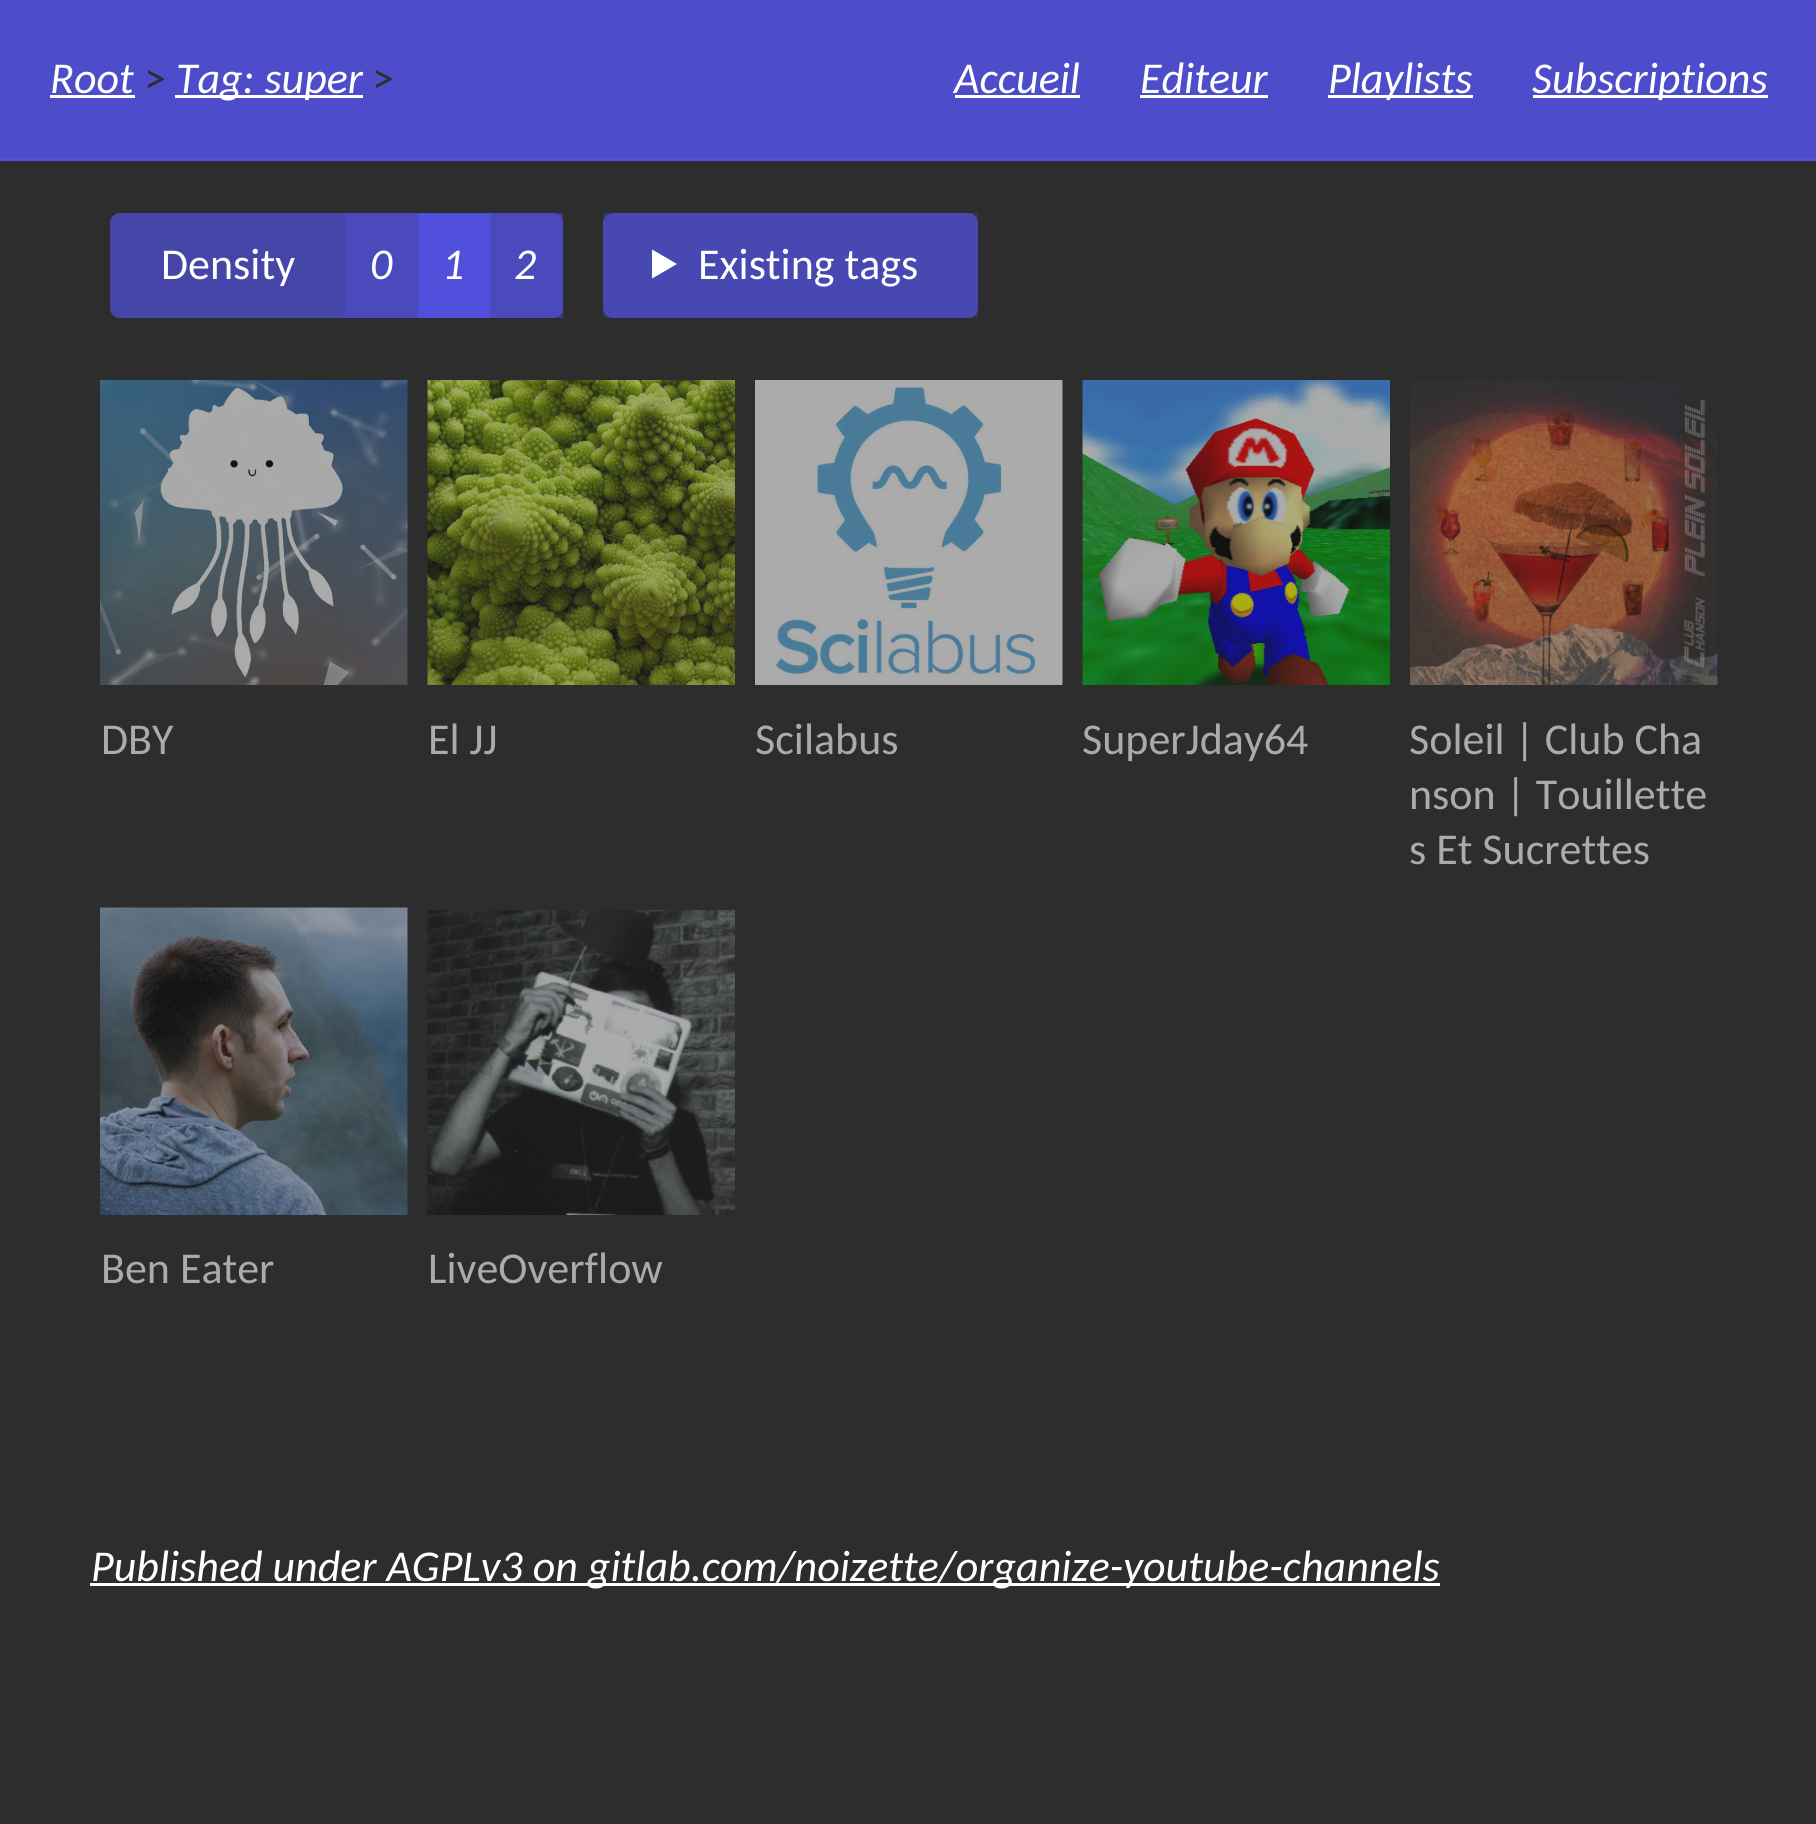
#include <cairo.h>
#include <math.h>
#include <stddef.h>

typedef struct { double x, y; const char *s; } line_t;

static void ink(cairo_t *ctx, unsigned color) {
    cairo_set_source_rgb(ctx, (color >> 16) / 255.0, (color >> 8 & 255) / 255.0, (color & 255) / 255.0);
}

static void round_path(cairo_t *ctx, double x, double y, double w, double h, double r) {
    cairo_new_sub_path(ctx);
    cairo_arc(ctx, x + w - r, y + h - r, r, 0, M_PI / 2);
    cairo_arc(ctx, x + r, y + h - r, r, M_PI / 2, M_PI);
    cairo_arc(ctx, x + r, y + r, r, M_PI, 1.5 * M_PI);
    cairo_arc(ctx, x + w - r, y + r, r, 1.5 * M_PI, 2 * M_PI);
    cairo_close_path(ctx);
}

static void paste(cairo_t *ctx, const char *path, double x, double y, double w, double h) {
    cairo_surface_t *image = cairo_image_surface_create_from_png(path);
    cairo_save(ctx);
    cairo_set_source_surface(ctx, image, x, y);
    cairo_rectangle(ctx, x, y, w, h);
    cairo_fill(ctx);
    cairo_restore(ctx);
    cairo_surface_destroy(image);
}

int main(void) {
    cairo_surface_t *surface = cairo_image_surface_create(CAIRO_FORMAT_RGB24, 1816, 1824);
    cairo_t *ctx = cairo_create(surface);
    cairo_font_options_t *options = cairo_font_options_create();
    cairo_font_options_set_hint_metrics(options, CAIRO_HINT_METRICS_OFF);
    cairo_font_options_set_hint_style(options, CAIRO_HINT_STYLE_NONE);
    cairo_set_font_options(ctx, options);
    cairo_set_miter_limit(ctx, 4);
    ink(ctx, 0x2D2D2D);
    cairo_paint(ctx);
    ink(ctx, 0x4D4DCB);
    cairo_rectangle(ctx, 0, 0, 1816, 158);
    cairo_fill(ctx);
    ink(ctx, 0x5050DC);
    cairo_rectangle(ctx, 0, 158, 1816, 3);
    cairo_fill(ctx);
    cairo_select_font_face(ctx, "Carlito", CAIRO_FONT_SLANT_ITALIC, CAIRO_FONT_WEIGHT_NORMAL);
    cairo_set_font_size(ctx, 44);
    ink(ctx, 0xFFFFFF);
    cairo_move_to(ctx, 50, 93);
    cairo_show_text(ctx, "Root");
    cairo_rectangle(ctx, 50, 95, 85, 3);
    cairo_fill(ctx);
    cairo_select_font_face(ctx, "Carlito", CAIRO_FONT_SLANT_NORMAL, CAIRO_FONT_WEIGHT_NORMAL);
    ink(ctx, 0x2D2D2D);
    cairo_move_to(ctx, 144, 93);
    cairo_show_text(ctx, ">");
    ink(ctx, 0xFFFFFF);
    cairo_rectangle(ctx, 175, 95, 188, 3);
    cairo_fill(ctx);
    cairo_select_font_face(ctx, "Carlito", CAIRO_FONT_SLANT_ITALIC, CAIRO_FONT_WEIGHT_NORMAL);
    cairo_move_to(ctx, 176, 93);
    cairo_show_text(ctx, "Tag: super");
    cairo_select_font_face(ctx, "Carlito", CAIRO_FONT_SLANT_NORMAL, CAIRO_FONT_WEIGHT_NORMAL);
    ink(ctx, 0x2D2D2D);
    cairo_move_to(ctx, 372, 93);
    cairo_show_text(ctx, ">");
    cairo_select_font_face(ctx, "Carlito", CAIRO_FONT_SLANT_ITALIC, CAIRO_FONT_WEIGHT_NORMAL);
    ink(ctx, 0xFFFFFF);
    cairo_move_to(ctx, 954, 93);
    cairo_show_text(ctx, "Accueil");
    cairo_rectangle(ctx, 955, 95, 125, 3);
    cairo_fill(ctx);
    cairo_move_to(ctx, 1140, 93);
    cairo_show_text(ctx, "Editeur");
    cairo_rectangle(ctx, 1140, 95, 128, 3);
    cairo_fill(ctx);
    cairo_rectangle(ctx, 1328, 95, 145, 3);
    cairo_fill(ctx);
    cairo_move_to(ctx, 1328, 93);
    cairo_show_text(ctx, "Playlists");
    cairo_rectangle(ctx, 1533, 95, 235, 3);
    cairo_fill(ctx);
    cairo_move_to(ctx, 1532, 93);
    cairo_show_text(ctx, "Subscriptions");
    ink(ctx, 0x4646A8);
    round_path(ctx, 110, 213, 453, 105, 10);
    cairo_fill(ctx);
    cairo_select_font_face(ctx, "Carlito", CAIRO_FONT_SLANT_NORMAL, CAIRO_FONT_WEIGHT_NORMAL);
    ink(ctx, 0xFFFFFF);
    cairo_move_to(ctx, 161, 279);
    cairo_show_text(ctx, "Density");
    ink(ctx, 0x4A4ABD);
    cairo_rectangle(ctx, 345, 213, 73, 105);
    cairo_fill(ctx);
    cairo_select_font_face(ctx, "Carlito", CAIRO_FONT_SLANT_ITALIC, CAIRO_FONT_WEIGHT_NORMAL);
    ink(ctx, 0xFFFFFF);
    cairo_move_to(ctx, 370, 279);
    cairo_show_text(ctx, "0");
    ink(ctx, 0x5050DC);
    cairo_rectangle(ctx, 418, 213, 72, 105);
    cairo_fill(ctx);
    ink(ctx, 0xFFFFFF);
    cairo_move_to(ctx, 442, 279);
    cairo_show_text(ctx, "1");
    cairo_set_source_rgba(ctx, 0.314, 0.314, 0.863, 0.4);
    cairo_rectangle(ctx, 490, 213, 73, 105);
    cairo_fill(ctx);
    ink(ctx, 0xFFFFFF);
    cairo_move_to(ctx, 514, 279);
    cairo_show_text(ctx, "2");
    ink(ctx, 0x343450);
    cairo_rectangle(ctx, 603, 213, 375, 105);
    cairo_fill(ctx);
    ink(ctx, 0x4848B2);
    round_path(ctx, 603, 213, 375, 105, 10);
    cairo_fill(ctx);
    ink(ctx, 0xFFFFFF);
    cairo_new_path(ctx);
    cairo_move_to(ctx, 652, 249.5);
    cairo_line_to(ctx, 677, 264);
    cairo_line_to(ctx, 652, 278.5);
    cairo_close_path(ctx);
    cairo_fill(ctx);
    cairo_select_font_face(ctx, "Carlito", CAIRO_FONT_SLANT_NORMAL, CAIRO_FONT_WEIGHT_NORMAL);
    cairo_move_to(ctx, 698, 279);
    cairo_show_text(ctx, "Existing tags");
    paste(ctx, "media/1.png", 100, 380, 308, 305);
    ink(ctx, 0xABABAB);
    cairo_move_to(ctx, 101, 754);
    cairo_show_text(ctx, "DBY");
    paste(ctx, "media/2.png", 427, 380, 308, 305);
    cairo_move_to(ctx, 428, 754);
    cairo_show_text(ctx, "El JJ");
    paste(ctx, "media/3.png", 755, 380, 308, 305);
    cairo_move_to(ctx, 755, 754);
    cairo_show_text(ctx, "Scilabus");
    paste(ctx, "media/4.png", 1082, 380, 308, 305);
    cairo_move_to(ctx, 1082, 754);
    cairo_show_text(ctx, "SuperJday64");
    paste(ctx, "media/5.png", 1410, 380, 308, 305);
    {
        static const line_t items[] = {
            {1409, 754, "Soleil | Club Cha"},
            {1409, 809, "nson | Touillette"},
            {1409, 864, "s Et Sucrettes"},
        };
        for (size_t i = 0; i < sizeof items / sizeof *items; i++) {
            cairo_move_to(ctx, items[i].x, items[i].y);
            cairo_show_text(ctx, items[i].s);
        }
    }
    paste(ctx, "media/6.png", 100, 907, 308, 308);
    cairo_move_to(ctx, 101, 1283);
    cairo_show_text(ctx, "Ben Eater");
    paste(ctx, "media/7.png", 427, 910, 308, 305);
    cairo_move_to(ctx, 428, 1283);
    cairo_show_text(ctx, "LiveOverflow");
    ink(ctx, 0xFFFFFF);
    cairo_rectangle(ctx, 90, 1583, 1350, 3);
    cairo_fill(ctx);
    cairo_select_font_face(ctx, "Carlito", CAIRO_FONT_SLANT_ITALIC, CAIRO_FONT_WEIGHT_NORMAL);
    cairo_move_to(ctx, 91, 1581);
    cairo_show_text(ctx, "Published under AGPLv3 on gitlab.com/noizette/organize-youtube-channels");
    cairo_surface_write_to_png(surface, "image.png");
    cairo_font_options_destroy(options);
    cairo_destroy(ctx);
    cairo_surface_destroy(surface);
    return 0;
}
